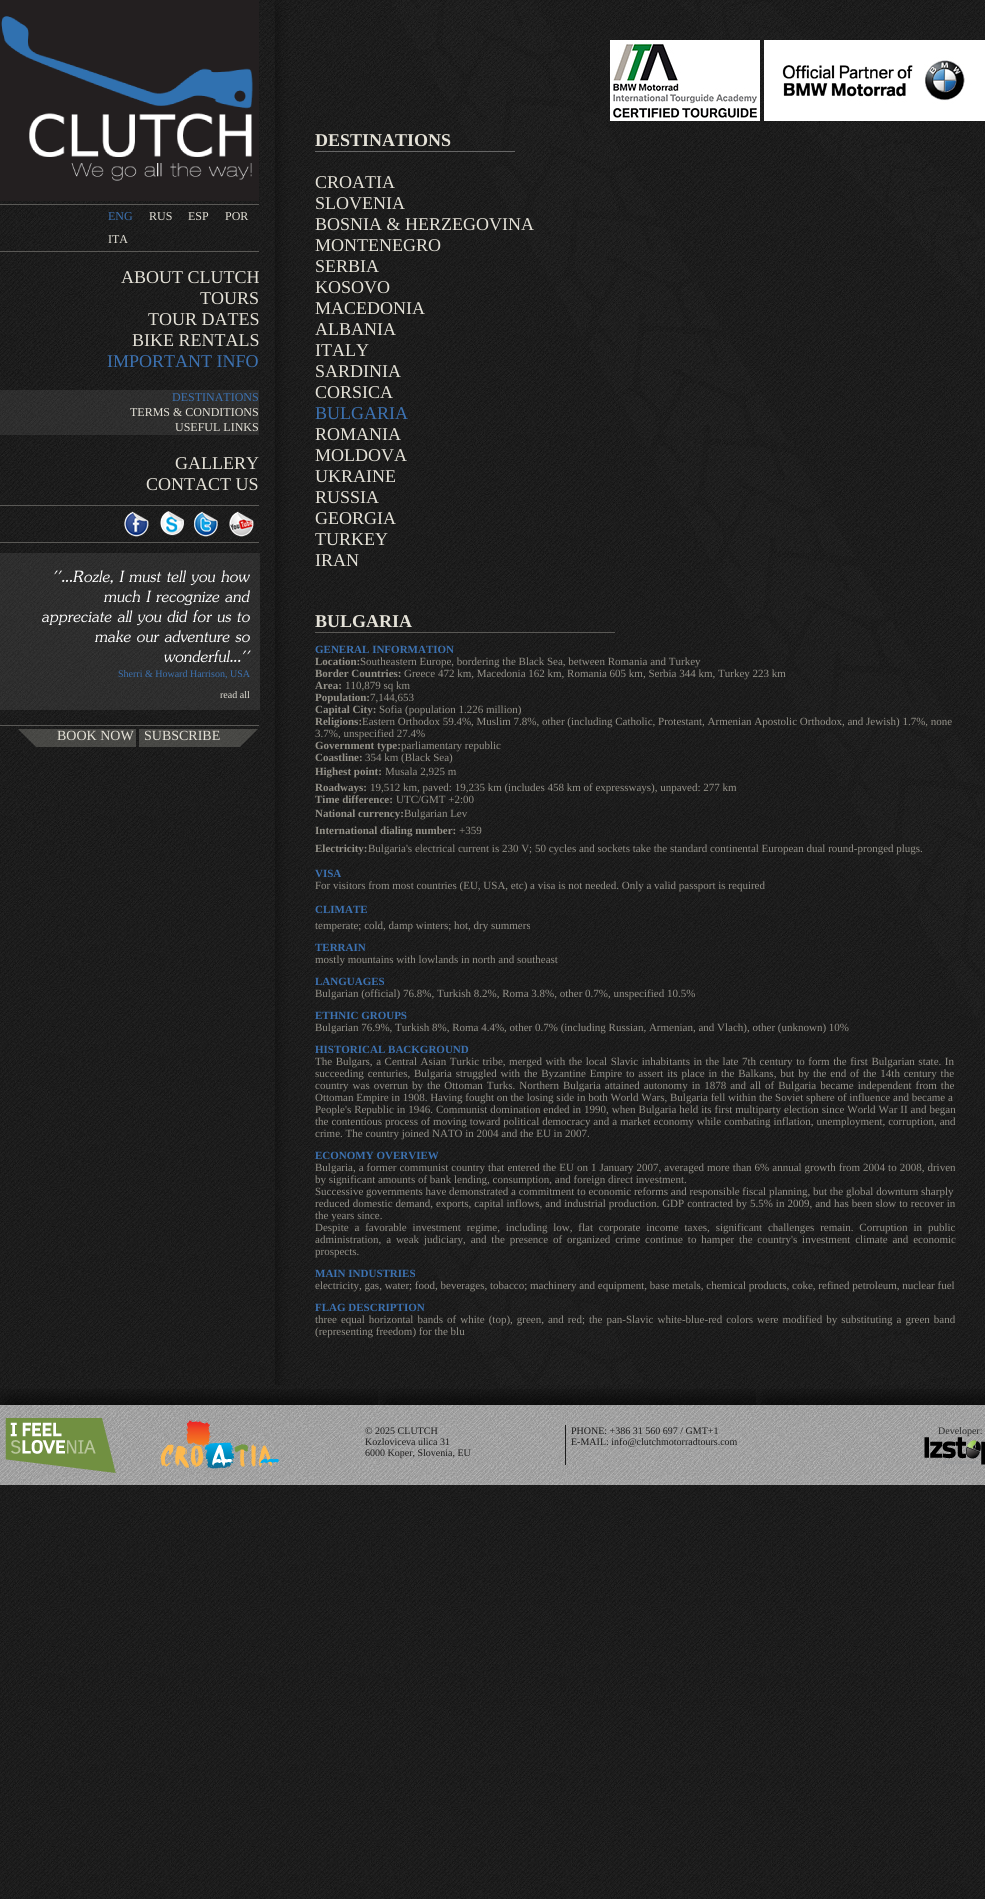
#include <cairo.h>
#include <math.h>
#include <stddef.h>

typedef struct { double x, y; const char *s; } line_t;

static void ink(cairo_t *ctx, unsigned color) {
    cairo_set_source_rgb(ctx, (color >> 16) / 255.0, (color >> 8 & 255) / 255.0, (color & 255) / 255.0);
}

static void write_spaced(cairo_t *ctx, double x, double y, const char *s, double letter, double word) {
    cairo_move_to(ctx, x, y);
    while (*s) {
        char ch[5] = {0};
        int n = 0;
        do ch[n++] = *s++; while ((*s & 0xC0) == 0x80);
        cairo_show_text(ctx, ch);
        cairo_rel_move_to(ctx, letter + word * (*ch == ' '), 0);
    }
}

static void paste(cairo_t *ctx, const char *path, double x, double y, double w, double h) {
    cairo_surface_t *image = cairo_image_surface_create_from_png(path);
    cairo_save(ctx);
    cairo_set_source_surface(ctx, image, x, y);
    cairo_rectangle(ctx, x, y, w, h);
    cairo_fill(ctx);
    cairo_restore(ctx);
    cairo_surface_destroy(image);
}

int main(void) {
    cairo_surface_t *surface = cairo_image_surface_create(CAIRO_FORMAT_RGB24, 985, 1899);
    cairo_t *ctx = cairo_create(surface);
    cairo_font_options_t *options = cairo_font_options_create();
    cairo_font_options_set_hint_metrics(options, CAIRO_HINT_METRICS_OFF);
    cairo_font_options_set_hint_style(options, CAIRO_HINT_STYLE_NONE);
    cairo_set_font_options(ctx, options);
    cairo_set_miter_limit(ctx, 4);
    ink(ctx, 0xFFFFFF);
    cairo_paint(ctx);
    paste(ctx, "media/1.png", 0, 852, 985, 1047);
    paste(ctx, "media/2.png", 0, 0, 275, 852);
    paste(ctx, "media/3.png", 0, 0, 259, 201);
    ink(ctx, 0x5A5956);
    cairo_rectangle(ctx, 0, 204, 259, 1);
    cairo_fill(ctx);
    cairo_rectangle(ctx, 0, 251, 259, 1);
    cairo_fill(ctx);
    cairo_select_font_face(ctx, "Liberation Serif", CAIRO_FONT_SLANT_NORMAL, CAIRO_FONT_WEIGHT_NORMAL);
    cairo_set_font_size(ctx, 12);
    ink(ctx, 0x3C72B2);
    cairo_move_to(ctx, 108, 220);
    cairo_show_text(ctx, "ENG");
    ink(ctx, 0xE5E2D8);
    {
        static const line_t items[] = {
            {149, 220, "RUS"},
            {188, 220, "ESP"},
            {225, 220, "POR"},
            {108, 243, "ITA"},
        };
        for (size_t i = 0; i < sizeof items / sizeof *items; i++) {
            cairo_move_to(ctx, items[i].x, items[i].y);
            cairo_show_text(ctx, items[i].s);
        }
    }
    cairo_set_font_size(ctx, 18);
    {
        static const line_t items[] = {
            {121, 283, "ABOUT CLUTCH"},
            {200, 304, "TOURS"},
            {148, 325, "TOUR DATES"},
            {132, 346, "BIKE RENTALS"},
        };
        for (size_t i = 0; i < sizeof items / sizeof *items; i++) {
            cairo_move_to(ctx, items[i].x, items[i].y);
            cairo_show_text(ctx, items[i].s);
        }
    }
    ink(ctx, 0x3C72B2);
    cairo_move_to(ctx, 107, 367);
    cairo_show_text(ctx, "IMPORTANT INFO");
    cairo_set_source_rgba(ctx, 0.58, 0.58, 0.58, 0.15);
    cairo_rectangle(ctx, 0, 390, 259, 15);
    cairo_fill(ctx);
    cairo_set_font_size(ctx, 12);
    ink(ctx, 0x3C72B2);
    cairo_move_to(ctx, 172, 401);
    cairo_show_text(ctx, "DESTINATIONS");
    cairo_set_source_rgba(ctx, 0.58, 0.58, 0.58, 0.15);
    cairo_rectangle(ctx, 0, 405, 259, 15);
    cairo_fill(ctx);
    ink(ctx, 0xE5E2D8);
    cairo_move_to(ctx, 130, 416);
    cairo_show_text(ctx, "TERMS & CONDITIONS");
    cairo_set_source_rgba(ctx, 0.58, 0.58, 0.58, 0.15);
    cairo_rectangle(ctx, 0, 420, 259, 15);
    cairo_fill(ctx);
    ink(ctx, 0xE5E2D8);
    cairo_move_to(ctx, 175, 431);
    cairo_show_text(ctx, "USEFUL LINKS");
    cairo_set_font_size(ctx, 18);
    cairo_move_to(ctx, 175, 469);
    cairo_show_text(ctx, "GALLERY");
    cairo_move_to(ctx, 146, 490);
    cairo_show_text(ctx, "CONTACT US");
    ink(ctx, 0x5A5956);
    cairo_rectangle(ctx, 0, 505, 259, 1);
    cairo_fill(ctx);
    cairo_rectangle(ctx, 0, 542, 259, 1);
    cairo_fill(ctx);
    paste(ctx, "media/4.png", 124, 511, 25, 26);
    paste(ctx, "media/5.png", 160, 511, 24, 25);
    paste(ctx, "media/6.png", 194, 511, 24, 26);
    paste(ctx, "media/7.png", 229, 511, 25, 26);
    cairo_set_source_rgba(ctx, 0.58, 0.58, 0.58, 0.15);
    cairo_rectangle(ctx, 0, 553, 260, 157);
    cairo_fill(ctx);
    cairo_select_font_face(ctx, "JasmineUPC", CAIRO_FONT_SLANT_ITALIC, CAIRO_FONT_WEIGHT_NORMAL);
    cairo_set_font_size(ctx, 25);
    ink(ctx, 0xFFFFFF);
    {
        static const line_t items[] = {
            {53, 582, "''...Rozle, I must tell you how"},
            {104, 602, "much I recognize and"},
            {42, 622, "appreciate all you did for us to"},
            {95, 642, "make our adventure so"},
            {164, 662, "wonderful...''"},
        };
        for (size_t i = 0; i < sizeof items / sizeof *items; i++) {
            cairo_move_to(ctx, items[i].x, items[i].y);
            cairo_show_text(ctx, items[i].s);
        }
    }
    cairo_select_font_face(ctx, "Liberation Serif", CAIRO_FONT_SLANT_NORMAL, CAIRO_FONT_WEIGHT_NORMAL);
    cairo_set_font_size(ctx, 10);
    ink(ctx, 0x3C72B2);
    cairo_move_to(ctx, 118, 677);
    cairo_show_text(ctx, "Sherri & Howard Harrison, USA");
    ink(ctx, 0xE5E2D8);
    cairo_move_to(ctx, 220, 698);
    cairo_show_text(ctx, "read all");
    ink(ctx, 0x5A5956);
    cairo_rectangle(ctx, 0, 725, 259, 1);
    cairo_fill(ctx);
    paste(ctx, "media/8.png", 18, 729, 118, 18);
    cairo_set_font_size(ctx, 14);
    ink(ctx, 0xE5E2D8);
    cairo_move_to(ctx, 57, 740);
    cairo_show_text(ctx, "BOOK NOW");
    paste(ctx, "media/9.png", 139, 729, 119, 18);
    cairo_move_to(ctx, 144, 740);
    cairo_show_text(ctx, "SUBSCRIBE");
    paste(ctx, "media/10.png", 275, 0, 710, 1385);
    paste(ctx, "media/11.png", 610, 40, 150, 81);
    paste(ctx, "media/12.png", 764, 40, 221, 81);
    ink(ctx, 0x666666);
    cairo_rectangle(ctx, 315, 151, 200, 1);
    cairo_fill(ctx);
    cairo_select_font_face(ctx, "Liberation Serif", CAIRO_FONT_SLANT_NORMAL, CAIRO_FONT_WEIGHT_BOLD);
    cairo_set_font_size(ctx, 18);
    ink(ctx, 0xE5E2D8);
    cairo_move_to(ctx, 315, 146);
    cairo_show_text(ctx, "DESTINATIONS");
    cairo_select_font_face(ctx, "Liberation Serif", CAIRO_FONT_SLANT_NORMAL, CAIRO_FONT_WEIGHT_NORMAL);
    {
        static const line_t items[] = {
            {315, 188, "CROATIA"},
            {315, 209, "SLOVENIA"},
            {315, 230, "BOSNIA & HERZEGOVINA"},
            {315, 251, "MONTENEGRO"},
            {315, 272, "SERBIA"},
            {315, 293, "KOSOVO"},
            {315, 314, "MACEDONIA"},
            {315, 335, "ALBANIA"},
            {315, 356, "ITALY"},
            {315, 377, "SARDINIA"},
            {315, 398, "CORSICA"},
        };
        for (size_t i = 0; i < sizeof items / sizeof *items; i++) {
            cairo_move_to(ctx, items[i].x, items[i].y);
            cairo_show_text(ctx, items[i].s);
        }
    }
    ink(ctx, 0x3C72B2);
    cairo_move_to(ctx, 315, 419);
    cairo_show_text(ctx, "BULGARIA");
    ink(ctx, 0xE5E2D8);
    {
        static const line_t items[] = {
            {315, 440, "ROMANIA"},
            {315, 461, "MOLDOVA"},
            {315, 482, "UKRAINE"},
            {315, 503, "RUSSIA"},
            {315, 524, "GEORGIA"},
            {315, 545, "TURKEY"},
            {315, 566, "IRAN"},
        };
        for (size_t i = 0; i < sizeof items / sizeof *items; i++) {
            cairo_move_to(ctx, items[i].x, items[i].y);
            cairo_show_text(ctx, items[i].s);
        }
    }
    ink(ctx, 0x5A5956);
    cairo_rectangle(ctx, 315, 632, 300, 1);
    cairo_fill(ctx);
    cairo_select_font_face(ctx, "Liberation Serif", CAIRO_FONT_SLANT_NORMAL, CAIRO_FONT_WEIGHT_BOLD);
    ink(ctx, 0xE5E2D8);
    cairo_move_to(ctx, 315, 627);
    cairo_show_text(ctx, "BULGARIA");
    cairo_set_font_size(ctx, 11);
    ink(ctx, 0x3C72B2);
    cairo_move_to(ctx, 315, 653);
    cairo_show_text(ctx, "GENERAL INFORMATION");
    ink(ctx, 0x959289);
    cairo_move_to(ctx, 315, 665);
    cairo_show_text(ctx, "Location:");
    cairo_select_font_face(ctx, "Liberation Serif", CAIRO_FONT_SLANT_NORMAL, CAIRO_FONT_WEIGHT_NORMAL);
    cairo_move_to(ctx, 360, 665);
    cairo_show_text(ctx, "Southeastern Europe, bordering the Black Sea, between Romania and Turkey");
    cairo_select_font_face(ctx, "Liberation Serif", CAIRO_FONT_SLANT_NORMAL, CAIRO_FONT_WEIGHT_BOLD);
    cairo_move_to(ctx, 315, 677);
    cairo_show_text(ctx, "Border Countries:");
    cairo_select_font_face(ctx, "Liberation Serif", CAIRO_FONT_SLANT_NORMAL, CAIRO_FONT_WEIGHT_NORMAL);
    cairo_move_to(ctx, 404, 677);
    cairo_show_text(ctx, "Greece 472 km, Macedonia 162 km, Romania 605 km, Serbia 344 km, Turkey 223 km");
    cairo_select_font_face(ctx, "Liberation Serif", CAIRO_FONT_SLANT_NORMAL, CAIRO_FONT_WEIGHT_BOLD);
    cairo_move_to(ctx, 315, 689);
    cairo_show_text(ctx, "Area:");
    cairo_select_font_face(ctx, "Liberation Serif", CAIRO_FONT_SLANT_NORMAL, CAIRO_FONT_WEIGHT_NORMAL);
    cairo_move_to(ctx, 345, 689);
    cairo_show_text(ctx, "110,879 sq km");
    cairo_select_font_face(ctx, "Liberation Serif", CAIRO_FONT_SLANT_NORMAL, CAIRO_FONT_WEIGHT_BOLD);
    cairo_move_to(ctx, 315, 701);
    cairo_show_text(ctx, "Population:");
    cairo_select_font_face(ctx, "Liberation Serif", CAIRO_FONT_SLANT_NORMAL, CAIRO_FONT_WEIGHT_NORMAL);
    cairo_move_to(ctx, 370, 701);
    cairo_show_text(ctx, "7,144,653");
    cairo_select_font_face(ctx, "Liberation Serif", CAIRO_FONT_SLANT_NORMAL, CAIRO_FONT_WEIGHT_BOLD);
    cairo_move_to(ctx, 315, 713);
    cairo_show_text(ctx, "Capital City:");
    cairo_select_font_face(ctx, "Liberation Serif", CAIRO_FONT_SLANT_NORMAL, CAIRO_FONT_WEIGHT_NORMAL);
    cairo_move_to(ctx, 379, 713);
    cairo_show_text(ctx, "Sofia (population 1.226 million)");
    cairo_select_font_face(ctx, "Liberation Serif", CAIRO_FONT_SLANT_NORMAL, CAIRO_FONT_WEIGHT_BOLD);
    cairo_move_to(ctx, 315, 725);
    cairo_show_text(ctx, "Religions:");
    cairo_select_font_face(ctx, "Liberation Serif", CAIRO_FONT_SLANT_NORMAL, CAIRO_FONT_WEIGHT_NORMAL);
    cairo_move_to(ctx, 362, 725);
    cairo_show_text(ctx, "Eastern Orthodox 59.4%, Muslim 7.8%, other (including Catholic, Protestant, Armenian Apostolic Orthodox, and Jewish) 1.7%, none");
    cairo_move_to(ctx, 315, 737);
    cairo_show_text(ctx, "3.7%, unspecified 27.4%");
    cairo_select_font_face(ctx, "Liberation Serif", CAIRO_FONT_SLANT_NORMAL, CAIRO_FONT_WEIGHT_BOLD);
    cairo_move_to(ctx, 315, 749);
    cairo_show_text(ctx, "Government type:");
    cairo_select_font_face(ctx, "Liberation Serif", CAIRO_FONT_SLANT_NORMAL, CAIRO_FONT_WEIGHT_NORMAL);
    cairo_move_to(ctx, 401, 749);
    cairo_show_text(ctx, "parliamentary republic");
    cairo_select_font_face(ctx, "Liberation Serif", CAIRO_FONT_SLANT_NORMAL, CAIRO_FONT_WEIGHT_BOLD);
    cairo_move_to(ctx, 315, 761);
    cairo_show_text(ctx, "Coastline:");
    cairo_select_font_face(ctx, "Liberation Serif", CAIRO_FONT_SLANT_NORMAL, CAIRO_FONT_WEIGHT_NORMAL);
    cairo_move_to(ctx, 365, 761);
    cairo_show_text(ctx, "354 km (Black Sea)");
    cairo_select_font_face(ctx, "Liberation Serif", CAIRO_FONT_SLANT_NORMAL, CAIRO_FONT_WEIGHT_BOLD);
    cairo_move_to(ctx, 315, 775);
    cairo_show_text(ctx, "Highest point:");
    cairo_select_font_face(ctx, "Liberation Serif", CAIRO_FONT_SLANT_NORMAL, CAIRO_FONT_WEIGHT_NORMAL);
    cairo_move_to(ctx, 385, 775);
    cairo_show_text(ctx, "Musala 2,925 m");
    cairo_select_font_face(ctx, "Liberation Serif", CAIRO_FONT_SLANT_NORMAL, CAIRO_FONT_WEIGHT_BOLD);
    cairo_move_to(ctx, 315, 791);
    cairo_show_text(ctx, "Roadways:");
    cairo_select_font_face(ctx, "Liberation Serif", CAIRO_FONT_SLANT_NORMAL, CAIRO_FONT_WEIGHT_NORMAL);
    cairo_move_to(ctx, 370, 791);
    cairo_show_text(ctx, "19,512 km, paved: 19,235 km (includes 458 km of expressways), unpaved: 277 km");
    cairo_select_font_face(ctx, "Liberation Serif", CAIRO_FONT_SLANT_NORMAL, CAIRO_FONT_WEIGHT_BOLD);
    cairo_move_to(ctx, 315, 803);
    cairo_show_text(ctx, "Time difference:");
    cairo_select_font_face(ctx, "Liberation Serif", CAIRO_FONT_SLANT_NORMAL, CAIRO_FONT_WEIGHT_NORMAL);
    cairo_move_to(ctx, 396, 803);
    cairo_show_text(ctx, "UTC/GMT +2:00");
    cairo_select_font_face(ctx, "Liberation Serif", CAIRO_FONT_SLANT_NORMAL, CAIRO_FONT_WEIGHT_BOLD);
    cairo_move_to(ctx, 315, 817);
    cairo_show_text(ctx, "National currency:");
    cairo_select_font_face(ctx, "Liberation Serif", CAIRO_FONT_SLANT_NORMAL, CAIRO_FONT_WEIGHT_NORMAL);
    cairo_move_to(ctx, 404, 817);
    cairo_show_text(ctx, "Bulgarian Lev");
    cairo_select_font_face(ctx, "Liberation Serif", CAIRO_FONT_SLANT_NORMAL, CAIRO_FONT_WEIGHT_BOLD);
    cairo_move_to(ctx, 315, 834);
    cairo_show_text(ctx, "International dialing number:");
    cairo_select_font_face(ctx, "Liberation Serif", CAIRO_FONT_SLANT_NORMAL, CAIRO_FONT_WEIGHT_NORMAL);
    cairo_move_to(ctx, 459, 834);
    cairo_show_text(ctx, "+359");
    cairo_select_font_face(ctx, "Liberation Serif", CAIRO_FONT_SLANT_NORMAL, CAIRO_FONT_WEIGHT_BOLD);
    cairo_move_to(ctx, 315, 852);
    cairo_show_text(ctx, "Electricity:");
    cairo_select_font_face(ctx, "Liberation Serif", CAIRO_FONT_SLANT_NORMAL, CAIRO_FONT_WEIGHT_NORMAL);
    cairo_move_to(ctx, 368, 852);
    cairo_show_text(ctx, "Bulgaria's electrical current is 230 V; 50 cycles and sockets take the standard continental European dual round-pronged plugs.");
    cairo_select_font_face(ctx, "Liberation Serif", CAIRO_FONT_SLANT_NORMAL, CAIRO_FONT_WEIGHT_BOLD);
    ink(ctx, 0x3C72B2);
    cairo_move_to(ctx, 315, 877);
    cairo_show_text(ctx, "VISA");
    cairo_select_font_face(ctx, "Liberation Serif", CAIRO_FONT_SLANT_NORMAL, CAIRO_FONT_WEIGHT_NORMAL);
    ink(ctx, 0x959289);
    cairo_move_to(ctx, 315, 889);
    cairo_show_text(ctx, "For visitors from most countries (EU, USA, etc) a visa is not needed. Only a valid passport is required");
    cairo_select_font_face(ctx, "Liberation Serif", CAIRO_FONT_SLANT_NORMAL, CAIRO_FONT_WEIGHT_BOLD);
    ink(ctx, 0x3C72B2);
    cairo_move_to(ctx, 315, 913);
    cairo_show_text(ctx, "CLIMATE");
    cairo_select_font_face(ctx, "Liberation Serif", CAIRO_FONT_SLANT_NORMAL, CAIRO_FONT_WEIGHT_NORMAL);
    ink(ctx, 0x959289);
    cairo_move_to(ctx, 315, 929);
    cairo_show_text(ctx, "temperate; cold, damp winters; hot, dry summers");
    cairo_select_font_face(ctx, "Liberation Serif", CAIRO_FONT_SLANT_NORMAL, CAIRO_FONT_WEIGHT_BOLD);
    ink(ctx, 0x3C72B2);
    cairo_move_to(ctx, 315, 951);
    cairo_show_text(ctx, "TERRAIN");
    cairo_select_font_face(ctx, "Liberation Serif", CAIRO_FONT_SLANT_NORMAL, CAIRO_FONT_WEIGHT_NORMAL);
    ink(ctx, 0x959289);
    cairo_move_to(ctx, 315, 963);
    cairo_show_text(ctx, "mostly mountains with lowlands in north and southeast");
    cairo_select_font_face(ctx, "Liberation Serif", CAIRO_FONT_SLANT_NORMAL, CAIRO_FONT_WEIGHT_BOLD);
    ink(ctx, 0x3C72B2);
    cairo_move_to(ctx, 315, 985);
    cairo_show_text(ctx, "LANGUAGES");
    cairo_select_font_face(ctx, "Liberation Serif", CAIRO_FONT_SLANT_NORMAL, CAIRO_FONT_WEIGHT_NORMAL);
    ink(ctx, 0x959289);
    cairo_move_to(ctx, 315, 997);
    cairo_show_text(ctx, "Bulgarian (official) 76.8%, Turkish 8.2%, Roma 3.8%, other 0.7%, unspecified 10.5%");
    cairo_select_font_face(ctx, "Liberation Serif", CAIRO_FONT_SLANT_NORMAL, CAIRO_FONT_WEIGHT_BOLD);
    ink(ctx, 0x3C72B2);
    cairo_move_to(ctx, 315, 1019);
    cairo_show_text(ctx, "ETHNIC GROUPS");
    cairo_select_font_face(ctx, "Liberation Serif", CAIRO_FONT_SLANT_NORMAL, CAIRO_FONT_WEIGHT_NORMAL);
    ink(ctx, 0x959289);
    cairo_move_to(ctx, 315, 1031);
    cairo_show_text(ctx, "Bulgarian 76.9%, Turkish 8%, Roma 4.4%, other 0.7% (including Russian, Armenian, and Vlach), other (unknown) 10%");
    cairo_select_font_face(ctx, "Liberation Serif", CAIRO_FONT_SLANT_NORMAL, CAIRO_FONT_WEIGHT_BOLD);
    ink(ctx, 0x3C72B2);
    cairo_move_to(ctx, 315, 1053);
    cairo_show_text(ctx, "HISTORICAL BACKGROUND");
    cairo_select_font_face(ctx, "Liberation Serif", CAIRO_FONT_SLANT_NORMAL, CAIRO_FONT_WEIGHT_NORMAL);
    ink(ctx, 0x959289);
    write_spaced(ctx, 315, 1065, "The Bulgars, a Central Asian Turkic tribe, merged with the local Slavic inhabitants in the late 7th century to form the first Bulgarian state. In", 0, 0.8);
    write_spaced(ctx, 315, 1077, "succeeding centuries, Bulgaria struggled with the Byzantine Empire to assert its place in the Balkans, but by the end of the 14th century the", 0, 1.1);
    write_spaced(ctx, 315, 1089, "country was overrun by the Ottoman Turks. Northern Bulgaria attained autonomy in 1878 and all of Bulgaria became independent from the", 0, 1.25);
    cairo_move_to(ctx, 315, 1101);
    cairo_show_text(ctx, "Ottoman Empire in 1908. Having fought on the losing side in both World Wars, Bulgaria fell within the Soviet sphere of influence and became a");
    write_spaced(ctx, 315, 1113, "People's Republic in 1946. Communist domination ended in 1990, when Bulgaria held its first multiparty election since World War II and began", 0, 0.2);
    write_spaced(ctx, 315, 1125, "the contentious process of moving toward political democracy and a market economy while combating inflation, unemployment, corruption, and", 0, 0.2);
    cairo_move_to(ctx, 315, 1137);
    cairo_show_text(ctx, "crime. The country joined NATO in 2004 and the EU in 2007.");
    cairo_select_font_face(ctx, "Liberation Serif", CAIRO_FONT_SLANT_NORMAL, CAIRO_FONT_WEIGHT_BOLD);
    ink(ctx, 0x3C72B2);
    cairo_move_to(ctx, 315, 1159);
    cairo_show_text(ctx, "ECONOMY OVERVIEW");
    cairo_select_font_face(ctx, "Liberation Serif", CAIRO_FONT_SLANT_NORMAL, CAIRO_FONT_WEIGHT_NORMAL);
    ink(ctx, 0x959289);
    write_spaced(ctx, 315, 1171, "Bulgaria, a former communist country that entered the EU on 1 January 2007, averaged more than 6% annual growth from 2004 to 2008, driven", 0, 0.25);
    cairo_move_to(ctx, 315, 1183);
    cairo_show_text(ctx, "by significant amounts of bank lending, consumption, and foreign direct investment.");
    cairo_move_to(ctx, 315, 1195);
    cairo_show_text(ctx, "Successive governments have demonstrated a commitment to economic reforms and responsible fiscal planning, but the global downturn sharply");
    write_spaced(ctx, 315, 1207, "reduced domestic demand, exports, capital inflows, and industrial production. GDP contracted by 5.5% in 2009, and has been slow to recover in", 0, 0.25);
    cairo_move_to(ctx, 315, 1219);
    cairo_show_text(ctx, "the years since.");
    write_spaced(ctx, 315, 1231, "Despite a favorable investment regime, including low, flat corporate income taxes, significant challenges remain. Corruption in public", 0, 3.1);
    write_spaced(ctx, 315, 1243, "administration, a weak judiciary, and the presence of organized crime continue to hamper the country's investment climate and economic", 0, 2.1);
    cairo_move_to(ctx, 315, 1255);
    cairo_show_text(ctx, "prospects.");
    cairo_select_font_face(ctx, "Liberation Serif", CAIRO_FONT_SLANT_NORMAL, CAIRO_FONT_WEIGHT_BOLD);
    ink(ctx, 0x3C72B2);
    cairo_move_to(ctx, 315, 1277);
    cairo_show_text(ctx, "MAIN INDUSTRIES");
    cairo_select_font_face(ctx, "Liberation Serif", CAIRO_FONT_SLANT_NORMAL, CAIRO_FONT_WEIGHT_NORMAL);
    ink(ctx, 0x959289);
    cairo_move_to(ctx, 315, 1289);
    cairo_show_text(ctx, "electricity, gas, water; food, beverages, tobacco; machinery and equipment, base metals, chemical products, coke, refined petroleum, nuclear fuel");
    cairo_select_font_face(ctx, "Liberation Serif", CAIRO_FONT_SLANT_NORMAL, CAIRO_FONT_WEIGHT_BOLD);
    ink(ctx, 0x3C72B2);
    cairo_move_to(ctx, 315, 1311);
    cairo_show_text(ctx, "FLAG DESCRIPTION");
    cairo_select_font_face(ctx, "Liberation Serif", CAIRO_FONT_SLANT_NORMAL, CAIRO_FONT_WEIGHT_NORMAL);
    ink(ctx, 0x959289);
    write_spaced(ctx, 315, 1323, "three equal horizontal bands of white (top), green, and red; the pan-Slavic white-blue-red colors were modified by substituting a green band", 0, 1.25);
    cairo_move_to(ctx, 315, 1335);
    cairo_show_text(ctx, "(representing freedom) for the blu");
    paste(ctx, "media/13.png", 0, 1389, 985, 96);
    paste(ctx, "media/14.png", 5, 1418, 111, 55);
    paste(ctx, "media/15.png", 160, 1420, 120, 49);
    ink(ctx, 0x1C1C1C);
    cairo_rectangle(ctx, 565, 1425, 1, 40);
    cairo_fill(ctx);
    cairo_set_font_size(ctx, 10);
    {
        static const line_t items[] = {
            {365, 1434, "© 2025 CLUTCH"},
            {365, 1445, "Kozloviceva ulica 31"},
            {365, 1456, "6000 Koper, Slovenia, EU"},
            {571, 1434, "PHONE: +386 31 560 697 / GMT+1"},
            {571, 1445, "E-MAIL: info@clutchmotorradtours.com"},
        };
        for (size_t i = 0; i < sizeof items / sizeof *items; i++) {
            cairo_move_to(ctx, items[i].x, items[i].y);
            cairo_show_text(ctx, items[i].s);
        }
    }
    ink(ctx, 0x2C2D2D);
    cairo_move_to(ctx, 938, 1434);
    cairo_show_text(ctx, "Developer:");
    paste(ctx, "media/16.png", 924, 1437, 61, 28);
    cairo_surface_write_to_png(surface, "image.png");
    cairo_font_options_destroy(options);
    cairo_destroy(ctx);
    cairo_surface_destroy(surface);
    return 0;
}
